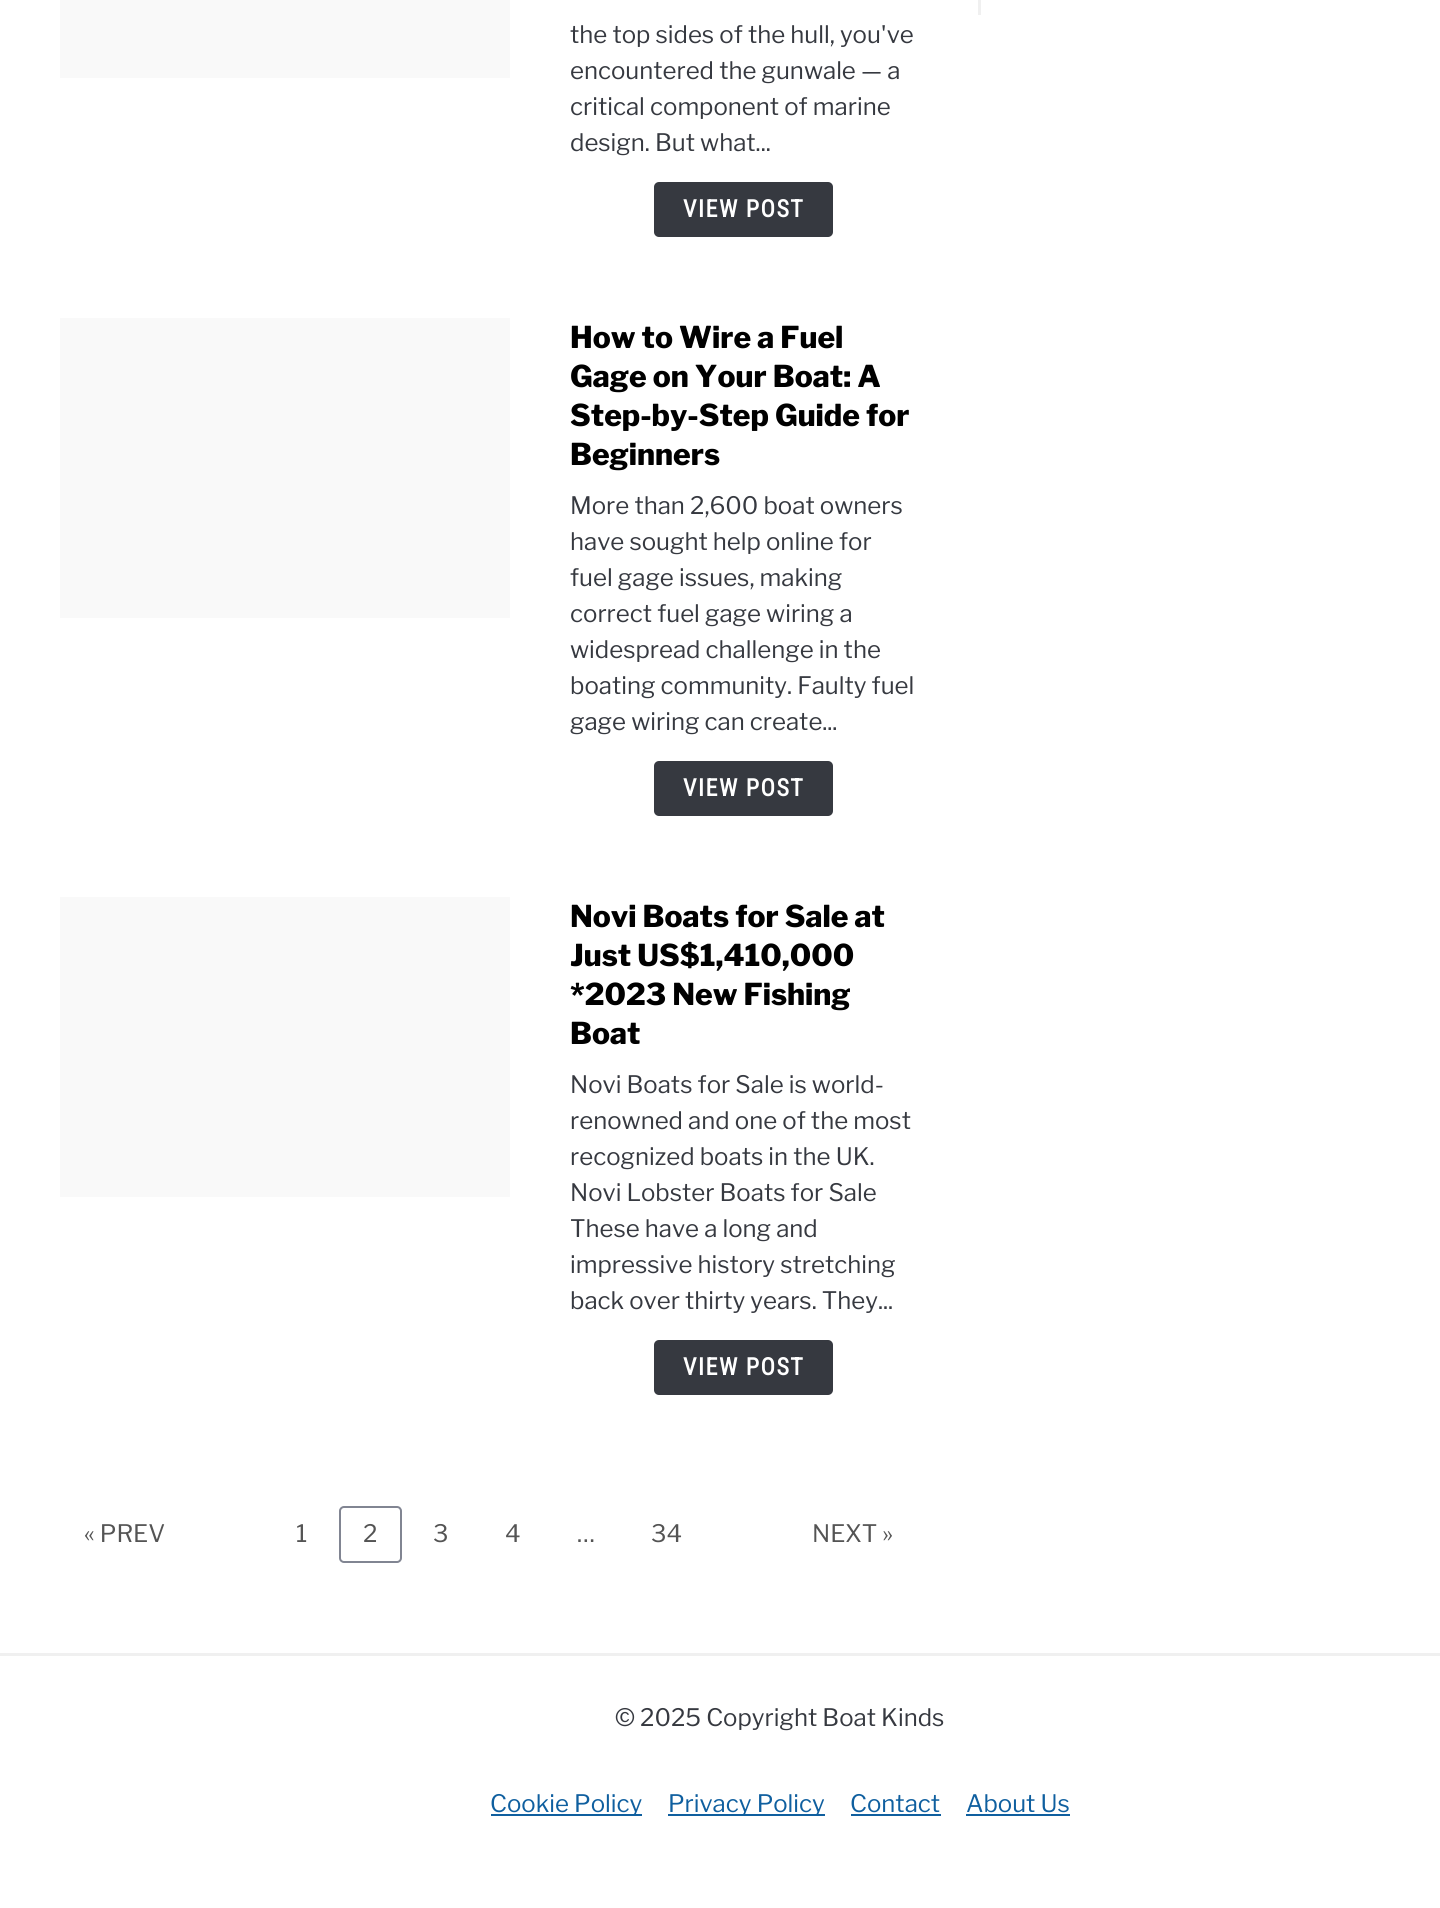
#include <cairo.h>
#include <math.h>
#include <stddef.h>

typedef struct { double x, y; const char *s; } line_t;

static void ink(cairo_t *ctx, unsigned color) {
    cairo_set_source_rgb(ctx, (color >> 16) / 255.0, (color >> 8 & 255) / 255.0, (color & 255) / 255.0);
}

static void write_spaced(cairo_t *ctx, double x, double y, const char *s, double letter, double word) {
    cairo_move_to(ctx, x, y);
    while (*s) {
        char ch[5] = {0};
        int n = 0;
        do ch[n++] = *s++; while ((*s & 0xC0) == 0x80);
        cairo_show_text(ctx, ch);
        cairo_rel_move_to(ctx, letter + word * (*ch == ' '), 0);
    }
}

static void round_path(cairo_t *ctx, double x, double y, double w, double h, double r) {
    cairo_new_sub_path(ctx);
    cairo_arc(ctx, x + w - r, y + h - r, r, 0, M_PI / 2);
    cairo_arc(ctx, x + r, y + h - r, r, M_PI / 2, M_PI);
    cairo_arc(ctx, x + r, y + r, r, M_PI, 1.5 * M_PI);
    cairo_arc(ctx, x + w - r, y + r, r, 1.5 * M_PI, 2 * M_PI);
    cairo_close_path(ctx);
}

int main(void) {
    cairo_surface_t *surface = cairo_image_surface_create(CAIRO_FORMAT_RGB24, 1440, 1908);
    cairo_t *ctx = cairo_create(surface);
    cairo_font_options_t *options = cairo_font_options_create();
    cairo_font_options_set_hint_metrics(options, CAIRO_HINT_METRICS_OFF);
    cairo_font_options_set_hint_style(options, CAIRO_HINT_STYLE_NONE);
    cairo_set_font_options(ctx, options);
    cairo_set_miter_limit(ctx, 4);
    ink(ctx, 0xFFFFFF);
    cairo_paint(ctx);
    ink(ctx, 0xF0F0F0);
    cairo_rectangle(ctx, 978, 0, 3, 15);
    cairo_fill(ctx);
    ink(ctx, 0xF9F9F9);
    cairo_rectangle(ctx, 60, 0, 450, 78);
    cairo_fill(ctx);
    cairo_select_font_face(ctx, "Libre Franklin", CAIRO_FONT_SLANT_NORMAL, CAIRO_FONT_WEIGHT_NORMAL);
    cairo_set_font_size(ctx, 24);
    ink(ctx, 0x363940);
    {
        static const line_t items[] = {
            {570, 43, "the top sides of the hull, you've"},
            {570, 79, "encountered the gunwale — a"},
            {570, 115, "critical component of marine"},
            {570, 151, "design. But what..."},
        };
        for (size_t i = 0; i < sizeof items / sizeof *items; i++) {
            cairo_move_to(ctx, items[i].x, items[i].y);
            cairo_show_text(ctx, items[i].s);
        }
    }
    round_path(ctx, 654, 182, 179, 55, 5);
    cairo_fill(ctx);
    cairo_select_font_face(ctx, "Roboto Condensed", CAIRO_FONT_SLANT_NORMAL, CAIRO_FONT_WEIGHT_BOLD);
    ink(ctx, 0xFFFFFF);
    write_spaced(ctx, 683, 217, "VIEW POST", 1.5, 0);
    ink(ctx, 0xF9F9F9);
    cairo_rectangle(ctx, 60, 318, 450, 300);
    cairo_fill(ctx);
    cairo_select_font_face(ctx, "Libre Franklin ExtraBold", CAIRO_FONT_SLANT_NORMAL, CAIRO_FONT_WEIGHT_NORMAL);
    cairo_set_font_size(ctx, 30);
    ink(ctx, 0x000000);
    {
        static const line_t items[] = {
            {570, 348, "How to Wire a Fuel"},
            {570, 387, "Gage on Your Boat: A"},
            {570, 426, "Step-by-Step Guide for"},
            {570, 465, "Beginners"},
        };
        for (size_t i = 0; i < sizeof items / sizeof *items; i++) {
            cairo_move_to(ctx, items[i].x, items[i].y);
            cairo_show_text(ctx, items[i].s);
        }
    }
    cairo_select_font_face(ctx, "Libre Franklin", CAIRO_FONT_SLANT_NORMAL, CAIRO_FONT_WEIGHT_NORMAL);
    cairo_set_font_size(ctx, 24);
    ink(ctx, 0x363940);
    {
        static const line_t items[] = {
            {570, 514, "More than 2,600 boat owners"},
            {570, 550, "have sought help online for"},
            {570, 586, "fuel gage issues, making"},
            {570, 622, "correct fuel gage wiring a"},
            {570, 658, "widespread challenge in the"},
            {570, 694, "boating community. Faulty fuel"},
            {570, 730, "gage wiring can create..."},
        };
        for (size_t i = 0; i < sizeof items / sizeof *items; i++) {
            cairo_move_to(ctx, items[i].x, items[i].y);
            cairo_show_text(ctx, items[i].s);
        }
    }
    round_path(ctx, 654, 761, 179, 55, 5);
    cairo_fill(ctx);
    cairo_select_font_face(ctx, "Roboto Condensed", CAIRO_FONT_SLANT_NORMAL, CAIRO_FONT_WEIGHT_BOLD);
    ink(ctx, 0xFFFFFF);
    write_spaced(ctx, 683, 796, "VIEW POST", 1.5, 0);
    ink(ctx, 0xF9F9F9);
    cairo_rectangle(ctx, 60, 897, 450, 300);
    cairo_fill(ctx);
    cairo_select_font_face(ctx, "Libre Franklin ExtraBold", CAIRO_FONT_SLANT_NORMAL, CAIRO_FONT_WEIGHT_NORMAL);
    cairo_set_font_size(ctx, 30);
    ink(ctx, 0x000000);
    {
        static const line_t items[] = {
            {570, 927, "Novi Boats for Sale at"},
            {570, 966, "Just US$1,410,000"},
            {570, 1005, "*2023 New Fishing"},
            {570, 1044, "Boat"},
        };
        for (size_t i = 0; i < sizeof items / sizeof *items; i++) {
            cairo_move_to(ctx, items[i].x, items[i].y);
            cairo_show_text(ctx, items[i].s);
        }
    }
    cairo_select_font_face(ctx, "Libre Franklin", CAIRO_FONT_SLANT_NORMAL, CAIRO_FONT_WEIGHT_NORMAL);
    cairo_set_font_size(ctx, 24);
    ink(ctx, 0x363940);
    {
        static const line_t items[] = {
            {570, 1093, "Novi Boats for Sale is world-"},
            {570, 1129, "renowned and one of the most"},
            {570, 1165, "recognized boats in the UK."},
            {570, 1201, "Novi Lobster Boats for Sale"},
            {570, 1237, "These have a long and"},
            {570, 1273, "impressive history stretching"},
            {570, 1309, "back over thirty years. They..."},
        };
        for (size_t i = 0; i < sizeof items / sizeof *items; i++) {
            cairo_move_to(ctx, items[i].x, items[i].y);
            cairo_show_text(ctx, items[i].s);
        }
    }
    round_path(ctx, 654, 1340, 179, 55, 5);
    cairo_fill(ctx);
    cairo_select_font_face(ctx, "Roboto Condensed", CAIRO_FONT_SLANT_NORMAL, CAIRO_FONT_WEIGHT_BOLD);
    ink(ctx, 0xFFFFFF);
    write_spaced(ctx, 683, 1375, "VIEW POST", 1.5, 0);
    cairo_select_font_face(ctx, "Libre Franklin", CAIRO_FONT_SLANT_NORMAL, CAIRO_FONT_WEIGHT_NORMAL);
    ink(ctx, 0x545454);
    cairo_move_to(ctx, 84, 1542);
    cairo_show_text(ctx, "« PREV");
    cairo_move_to(ctx, 296, 1542);
    cairo_show_text(ctx, "1");
    round_path(ctx, 340, 1507, 61, 55, 4);
    ink(ctx, 0x818592);
    cairo_stroke(ctx);
    ink(ctx, 0x545454);
    {
        static const line_t items[] = {
            {363, 1542, "2"},
            {433, 1542, "3"},
            {505, 1542, "4"},
            {577, 1542, "…"},
            {651, 1542, "34"},
            {812, 1542, "NEXT »"},
        };
        for (size_t i = 0; i < sizeof items / sizeof *items; i++) {
            cairo_move_to(ctx, items[i].x, items[i].y);
            cairo_show_text(ctx, items[i].s);
        }
    }
    ink(ctx, 0xF0F0F0);
    cairo_rectangle(ctx, 0, 1653, 1440, 3);
    cairo_fill(ctx);
    ink(ctx, 0x363940);
    cairo_move_to(ctx, 615, 1726);
    cairo_show_text(ctx, "© 2025 Copyright Boat Kinds");
    ink(ctx, 0x0F5F9F);
    cairo_rectangle(ctx, 491, 1814, 151, 2);
    cairo_fill(ctx);
    cairo_move_to(ctx, 490, 1812);
    cairo_show_text(ctx, "Cookie Policy");
    cairo_rectangle(ctx, 668, 1814, 157, 2);
    cairo_fill(ctx);
    cairo_move_to(ctx, 668, 1812);
    cairo_show_text(ctx, "Privacy Policy");
    cairo_move_to(ctx, 850, 1812);
    cairo_show_text(ctx, "Contact");
    cairo_rectangle(ctx, 851, 1814, 90, 2);
    cairo_fill(ctx);
    cairo_move_to(ctx, 966, 1812);
    cairo_show_text(ctx, "About Us");
    cairo_rectangle(ctx, 966, 1814, 104, 2);
    cairo_fill(ctx);
    cairo_surface_write_to_png(surface, "image.png");
    cairo_font_options_destroy(options);
    cairo_destroy(ctx);
    cairo_surface_destroy(surface);
    return 0;
}
